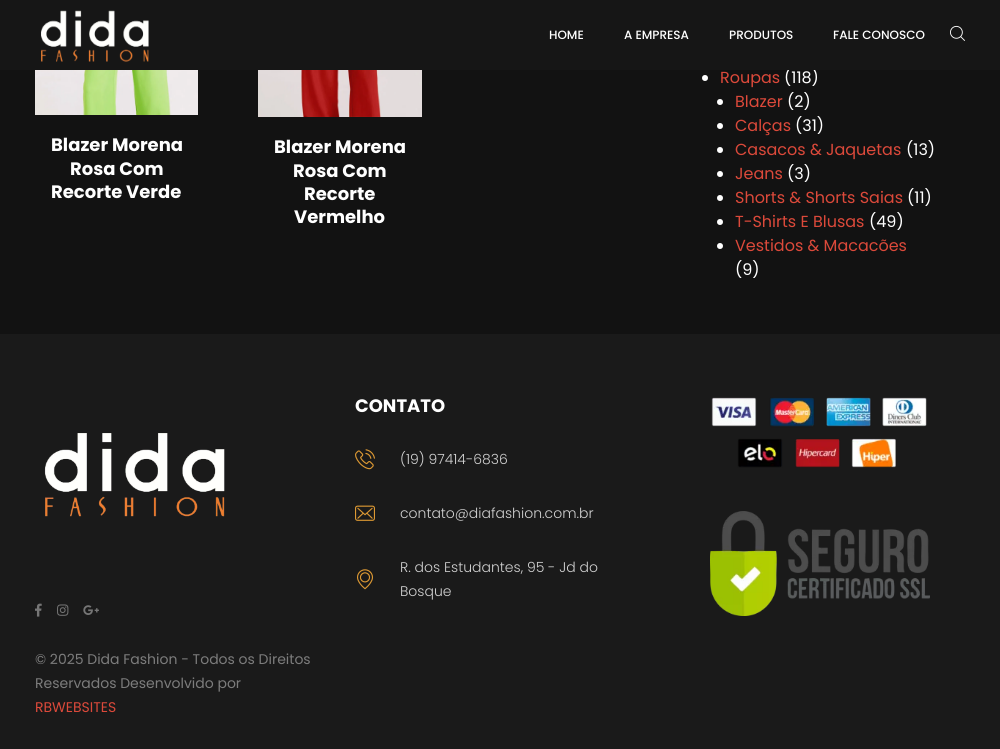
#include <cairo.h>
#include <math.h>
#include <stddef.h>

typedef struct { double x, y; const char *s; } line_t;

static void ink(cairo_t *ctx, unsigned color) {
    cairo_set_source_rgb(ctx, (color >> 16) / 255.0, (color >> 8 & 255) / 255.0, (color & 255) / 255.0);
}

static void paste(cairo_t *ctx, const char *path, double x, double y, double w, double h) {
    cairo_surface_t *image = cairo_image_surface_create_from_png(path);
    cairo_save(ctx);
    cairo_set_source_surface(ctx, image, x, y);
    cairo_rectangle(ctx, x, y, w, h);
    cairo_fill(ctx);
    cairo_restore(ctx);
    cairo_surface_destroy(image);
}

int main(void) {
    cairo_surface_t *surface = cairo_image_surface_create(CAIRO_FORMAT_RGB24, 1000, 749);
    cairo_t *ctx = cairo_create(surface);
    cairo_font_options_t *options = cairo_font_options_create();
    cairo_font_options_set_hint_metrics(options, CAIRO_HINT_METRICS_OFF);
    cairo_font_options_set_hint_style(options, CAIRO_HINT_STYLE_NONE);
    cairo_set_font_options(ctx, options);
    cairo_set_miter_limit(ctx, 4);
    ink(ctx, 0x121212);
    cairo_paint(ctx);
    cairo_select_font_face(ctx, "Poppins", CAIRO_FONT_SLANT_NORMAL, CAIRO_FONT_WEIGHT_NORMAL);
    cairo_set_font_size(ctx, 16);
    ink(ctx, 0xFFFFFF);
    cairo_move_to(ctx, 784, 83);
    cairo_show_text(ctx, "(118)");
    ink(ctx, 0x161616);
    cairo_rectangle(ctx, 0, 0, 1000, 70);
    cairo_fill(ctx);
    paste(ctx, "media/1.png", 41, 10, 108, 52);
    cairo_select_font_face(ctx, "Poppins Medium", CAIRO_FONT_SLANT_NORMAL, CAIRO_FONT_WEIGHT_NORMAL);
    cairo_set_font_size(ctx, 12);
    ink(ctx, 0xFFFFFF);
    {
        static const line_t items[] = {
            {549, 39, "HOME"},
            {624, 39, "A EMPRESA"},
            {729, 39, "PRODUTOS"},
            {833, 39, "FALE CONOSCO"},
        };
        for (size_t i = 0; i < sizeof items / sizeof *items; i++) {
            cairo_move_to(ctx, items[i].x, items[i].y);
            cairo_show_text(ctx, items[i].s);
        }
    }
    paste(ctx, "media/2.png", 950, 25, 15, 16);
    paste(ctx, "media/3.png", 35, 70, 163, 45);
    cairo_select_font_face(ctx, "Poppins", CAIRO_FONT_SLANT_NORMAL, CAIRO_FONT_WEIGHT_BOLD);
    cairo_set_font_size(ctx, 18);
    {
        static const line_t items[] = {
            {51, 151, "Blazer Morena"},
            {70, 175, "Rosa Com"},
            {51, 198, "Recorte Verde"},
        };
        for (size_t i = 0; i < sizeof items / sizeof *items; i++) {
            cairo_move_to(ctx, items[i].x, items[i].y);
            cairo_show_text(ctx, items[i].s);
        }
    }
    paste(ctx, "media/4.png", 258, 70, 164, 47);
    {
        static const line_t items[] = {
            {274, 153, "Blazer Morena"},
            {293, 177, "Rosa Com"},
            {304, 200, "Recorte"},
            {294, 223, "Vermelho"},
        };
        for (size_t i = 0; i < sizeof items / sizeof *items; i++) {
            cairo_move_to(ctx, items[i].x, items[i].y);
            cairo_show_text(ctx, items[i].s);
        }
    }
    cairo_new_path(ctx);
    cairo_arc(ctx, 705, 78, 3, 0, 2 * M_PI);
    cairo_fill(ctx);
    cairo_select_font_face(ctx, "Poppins", CAIRO_FONT_SLANT_NORMAL, CAIRO_FONT_WEIGHT_NORMAL);
    cairo_set_font_size(ctx, 16);
    ink(ctx, 0xDC493A);
    cairo_move_to(ctx, 720, 83);
    cairo_show_text(ctx, "Roupas");
    ink(ctx, 0xFFFFFF);
    cairo_new_path(ctx);
    cairo_arc(ctx, 720, 102, 3, 0, 2 * M_PI);
    cairo_fill(ctx);
    ink(ctx, 0xDC493A);
    cairo_move_to(ctx, 735, 107);
    cairo_show_text(ctx, "Blazer");
    ink(ctx, 0xFFFFFF);
    cairo_move_to(ctx, 787, 107);
    cairo_show_text(ctx, "(2)");
    cairo_new_path(ctx);
    cairo_arc(ctx, 720, 126, 3, 0, 2 * M_PI);
    cairo_fill(ctx);
    ink(ctx, 0xDC493A);
    cairo_move_to(ctx, 735, 131);
    cairo_show_text(ctx, "Calças");
    ink(ctx, 0xFFFFFF);
    cairo_move_to(ctx, 795, 131);
    cairo_show_text(ctx, "(31)");
    cairo_new_path(ctx);
    cairo_arc(ctx, 720, 150, 3, 0, 2 * M_PI);
    cairo_fill(ctx);
    ink(ctx, 0xDC493A);
    cairo_move_to(ctx, 735, 155);
    cairo_show_text(ctx, "Casacos & Jaquetas");
    ink(ctx, 0xFFFFFF);
    cairo_move_to(ctx, 906, 155);
    cairo_show_text(ctx, "(13)");
    cairo_new_path(ctx);
    cairo_arc(ctx, 720, 174, 3, 0, 2 * M_PI);
    cairo_fill(ctx);
    ink(ctx, 0xDC493A);
    cairo_move_to(ctx, 735, 179);
    cairo_show_text(ctx, "Jeans");
    ink(ctx, 0xFFFFFF);
    cairo_move_to(ctx, 787, 179);
    cairo_show_text(ctx, "(3)");
    cairo_new_path(ctx);
    cairo_arc(ctx, 720, 198, 3, 0, 2 * M_PI);
    cairo_fill(ctx);
    ink(ctx, 0xDC493A);
    cairo_move_to(ctx, 735, 203);
    cairo_show_text(ctx, "Shorts & Shorts Saias");
    ink(ctx, 0xFFFFFF);
    cairo_move_to(ctx, 907, 203);
    cairo_show_text(ctx, "(11)");
    cairo_new_path(ctx);
    cairo_arc(ctx, 720, 222, 3, 0, 2 * M_PI);
    cairo_fill(ctx);
    ink(ctx, 0xDC493A);
    cairo_move_to(ctx, 735, 227);
    cairo_show_text(ctx, "T-Shirts E Blusas");
    ink(ctx, 0xFFFFFF);
    cairo_move_to(ctx, 869, 227);
    cairo_show_text(ctx, "(49)");
    cairo_new_path(ctx);
    cairo_arc(ctx, 720, 246, 3, 0, 2 * M_PI);
    cairo_fill(ctx);
    ink(ctx, 0xDC493A);
    cairo_move_to(ctx, 735, 251);
    cairo_show_text(ctx, "Vestidos & Macacões");
    ink(ctx, 0xFFFFFF);
    cairo_move_to(ctx, 735, 275);
    cairo_show_text(ctx, "(9)");
    ink(ctx, 0x1A1A1A);
    cairo_rectangle(ctx, 0, 334, 1000, 415);
    cairo_fill(ctx);
    cairo_select_font_face(ctx, "Poppins", CAIRO_FONT_SLANT_NORMAL, CAIRO_FONT_WEIGHT_BOLD);
    cairo_set_font_size(ctx, 18);
    ink(ctx, 0xFFFFFF);
    cairo_move_to(ctx, 355, 412);
    cairo_show_text(ctx, "CONTATO");
    paste(ctx, "media/5.png", 355, 449, 20, 21);
    cairo_select_font_face(ctx, "Poppins Light", CAIRO_FONT_SLANT_NORMAL, CAIRO_FONT_WEIGHT_NORMAL);
    cairo_set_font_size(ctx, 14);
    ink(ctx, 0xD1D1D1);
    cairo_move_to(ctx, 400, 464);
    cairo_show_text(ctx, "(19) 97414-6836");
    paste(ctx, "media/6.png", 355, 505, 20, 16);
    cairo_move_to(ctx, 400, 518);
    cairo_show_text(ctx, "contato@diafashion.com.br");
    paste(ctx, "media/7.png", 357, 569, 16, 21);
    cairo_move_to(ctx, 400, 572);
    cairo_show_text(ctx, "R. dos Estudantes, 95 - Jd do");
    cairo_move_to(ctx, 400, 596);
    cairo_show_text(ctx, "Bosque");
    paste(ctx, "media/8.png", 711, 397, 216, 71);
    paste(ctx, "media/9.png", 710, 511, 220, 105);
    paste(ctx, "media/10.png", 44, 433, 181, 84);
    paste(ctx, "media/11.png", 35, 603, 7, 14);
    paste(ctx, "media/12.png", 57, 604, 12, 12);
    paste(ctx, "media/13.png", 83, 605, 16, 10);
    cairo_select_font_face(ctx, "Poppins", CAIRO_FONT_SLANT_NORMAL, CAIRO_FONT_WEIGHT_NORMAL);
    ink(ctx, 0x7C7C7C);
    cairo_move_to(ctx, 35, 664);
    cairo_show_text(ctx, "© 2025 Dida Fashion - Todos os Direitos");
    cairo_move_to(ctx, 35, 688);
    cairo_show_text(ctx, "Reservados Desenvolvido por");
    ink(ctx, 0xDC493A);
    cairo_move_to(ctx, 35, 712);
    cairo_show_text(ctx, "RBWEBSITES");
    cairo_surface_write_to_png(surface, "image.png");
    cairo_font_options_destroy(options);
    cairo_destroy(ctx);
    cairo_surface_destroy(surface);
    return 0;
}
